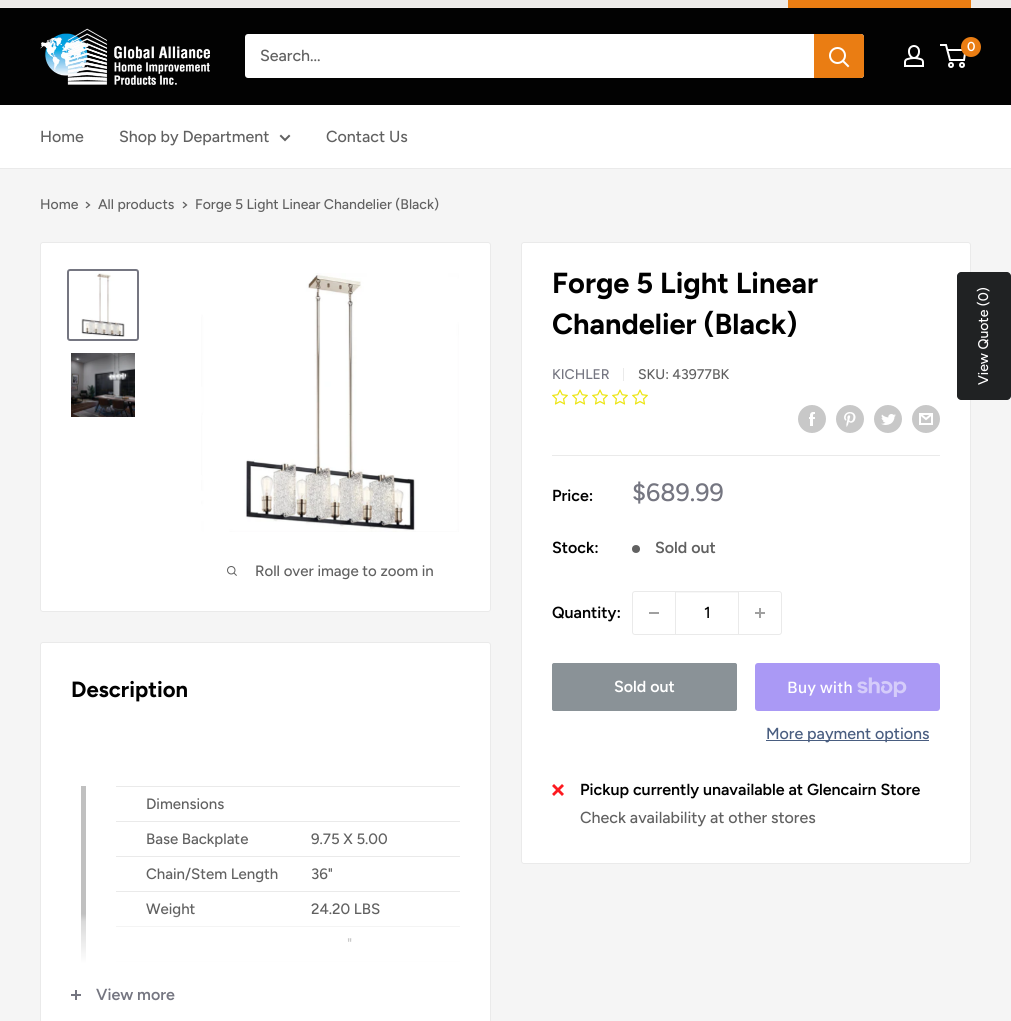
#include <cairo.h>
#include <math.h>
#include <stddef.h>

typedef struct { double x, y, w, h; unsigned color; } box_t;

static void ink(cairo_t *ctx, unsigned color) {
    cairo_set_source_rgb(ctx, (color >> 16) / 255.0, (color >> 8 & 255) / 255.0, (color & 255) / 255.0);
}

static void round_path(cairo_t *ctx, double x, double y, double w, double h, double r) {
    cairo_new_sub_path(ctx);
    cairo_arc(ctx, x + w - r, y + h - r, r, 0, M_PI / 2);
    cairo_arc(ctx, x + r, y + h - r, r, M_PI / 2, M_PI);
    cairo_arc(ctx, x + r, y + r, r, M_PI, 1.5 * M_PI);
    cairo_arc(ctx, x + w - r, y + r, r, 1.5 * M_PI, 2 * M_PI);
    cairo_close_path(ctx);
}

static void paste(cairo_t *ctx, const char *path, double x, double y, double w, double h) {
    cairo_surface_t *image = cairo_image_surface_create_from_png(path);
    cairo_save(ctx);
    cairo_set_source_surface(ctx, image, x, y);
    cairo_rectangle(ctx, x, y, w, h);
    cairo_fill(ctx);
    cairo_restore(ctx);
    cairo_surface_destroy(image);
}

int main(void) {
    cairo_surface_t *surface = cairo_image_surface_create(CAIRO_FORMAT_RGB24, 1011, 1021);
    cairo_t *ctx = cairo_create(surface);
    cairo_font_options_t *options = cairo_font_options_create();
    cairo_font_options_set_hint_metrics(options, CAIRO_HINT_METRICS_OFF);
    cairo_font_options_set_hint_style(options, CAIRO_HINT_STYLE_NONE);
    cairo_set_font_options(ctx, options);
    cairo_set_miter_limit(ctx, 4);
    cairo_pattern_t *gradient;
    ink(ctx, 0xF5F5F5);
    cairo_paint(ctx);
    {
        static const box_t items[] = {
            {0, 0, 1011, 7, 0xEDEBE9},
            {0, 7, 1011, 1, 0xF2F0EF},
            {788, 0, 183, 8, 0xEA7D13},
            {0, 8, 1011, 97, 0x020202},
        };
        for (size_t i = 0; i < sizeof items / sizeof *items; i++) {
            ink(ctx, items[i].color);
            cairo_rectangle(ctx, items[i].x, items[i].y, items[i].w, items[i].h);
            cairo_fill(ctx);
        }
    }
    paste(ctx, "media/1.png", 40, 28, 170, 57);
    paste(ctx, "media/2.png", 904, 45, 20, 22);
    cairo_arc(ctx, 951, 65, 2, 0, 2 * M_PI);
    ink(ctx, 0xFFFFFF);
    cairo_stroke(ctx);
    cairo_arc(ctx, 962, 65, 2, 0, 2 * M_PI);
    cairo_stroke(ctx);
    cairo_new_path(ctx);
    cairo_move_to(ctx, 947.5, 50);
    cairo_line_to(ctx, 965.5, 50);
    cairo_line_to(ctx, 964, 60);
    cairo_line_to(ctx, 950, 60);
    cairo_line_to(ctx, 946, 45);
    cairo_line_to(ctx, 940, 45);
    cairo_stroke(ctx);
    ink(ctx, 0xEA7D13);
    cairo_arc(ctx, 971, 47, 10, 0, 2 * M_PI);
    cairo_fill(ctx);
    cairo_select_font_face(ctx, "Figtree SemiBold", CAIRO_FONT_SLANT_NORMAL, CAIRO_FONT_WEIGHT_NORMAL);
    cairo_set_font_size(ctx, 13);
    ink(ctx, 0xFFFFFF);
    cairo_move_to(ctx, 967, 51);
    cairo_show_text(ctx, "0");
    round_path(ctx, 245, 34, 619, 44, 3);
    cairo_fill(ctx);
    cairo_select_font_face(ctx, "Figtree Medium", CAIRO_FONT_SLANT_NORMAL, CAIRO_FONT_WEIGHT_NORMAL);
    cairo_set_font_size(ctx, 16);
    ink(ctx, 0x616161);
    cairo_move_to(ctx, 260, 61);
    cairo_show_text(ctx, "Search...");
    ink(ctx, 0xEA7D13);
    cairo_new_path(ctx);
    cairo_move_to(ctx, 814, 34);
    cairo_line_to(ctx, 861, 34);
    cairo_curve_to(ctx, 862.5, 34, 864, 35.5, 864, 37);
    cairo_line_to(ctx, 864, 75);
    cairo_curve_to(ctx, 864, 76.5, 862.5, 78, 861, 78);
    cairo_line_to(ctx, 814, 78);
    cairo_close_path(ctx);
    cairo_fill(ctx);
    cairo_new_path(ctx);
    cairo_move_to(ctx, 848, 66);
    cairo_line_to(ctx, 843, 61);
    ink(ctx, 0xFFFFFF);
    cairo_set_line_cap(ctx, CAIRO_LINE_CAP_SQUARE);
    cairo_stroke(ctx);
    cairo_arc(ctx, 837.5, 55.5, 7.5, 0, 2 * M_PI);
    cairo_set_line_cap(ctx, CAIRO_LINE_CAP_BUTT);
    cairo_stroke(ctx);
    cairo_rectangle(ctx, 0, 105, 1011, 63);
    cairo_fill(ctx);
    ink(ctx, 0xEAEAEA);
    cairo_rectangle(ctx, 0, 168, 1011, 1);
    cairo_fill(ctx);
    ink(ctx, 0x616161);
    cairo_move_to(ctx, 40, 142);
    cairo_show_text(ctx, "Home");
    cairo_move_to(ctx, 119, 142);
    cairo_show_text(ctx, "Shop by Department");
    cairo_new_path(ctx);
    cairo_move_to(ctx, 289, 136);
    cairo_line_to(ctx, 285, 140);
    cairo_line_to(ctx, 281, 136);
    cairo_set_line_cap(ctx, CAIRO_LINE_CAP_SQUARE);
    cairo_stroke(ctx);
    cairo_move_to(ctx, 326, 142);
    cairo_show_text(ctx, "Contact Us");
    cairo_set_font_size(ctx, 14);
    cairo_move_to(ctx, 40, 209);
    cairo_show_text(ctx, "Home");
    cairo_new_path(ctx);
    cairo_move_to(ctx, 86.5, 202.5);
    cairo_line_to(ctx, 89.5, 205);
    cairo_line_to(ctx, 86.5, 207.5);
    cairo_set_line_width(ctx, 1.3);
    cairo_stroke(ctx);
    cairo_move_to(ctx, 98, 209);
    cairo_show_text(ctx, "All products");
    cairo_new_path(ctx);
    cairo_move_to(ctx, 183.5, 202.5);
    cairo_line_to(ctx, 186.5, 205);
    cairo_line_to(ctx, 183.5, 207.5);
    cairo_stroke(ctx);
    cairo_move_to(ctx, 195, 209);
    cairo_show_text(ctx, "Forge 5 Light Linear Chandelier (Black)");
    ink(ctx, 0xFFFFFF);
    round_path(ctx, 40.5, 242.5, 450, 369, 2.5);
    cairo_fill_preserve(ctx);
    ink(ctx, 0xEAEAEA);
    cairo_set_line_width(ctx, 1);
    cairo_set_line_cap(ctx, CAIRO_LINE_CAP_BUTT);
    cairo_stroke(ctx);
    round_path(ctx, 68, 270, 70, 70, 2);
    ink(ctx, 0x757681);
    cairo_set_line_width(ctx, 2);
    cairo_stroke(ctx);
    paste(ctx, "media/3.png", 81, 273, 44, 64);
    paste(ctx, "media/4.png", 71, 353, 64, 64);
    paste(ctx, "media/5.png", 201, 273, 258, 259);
    paste(ctx, "media/6.png", 227, 566, 10, 10);
    cairo_set_font_size(ctx, 15);
    ink(ctx, 0x616161);
    cairo_move_to(ctx, 255, 576);
    cairo_show_text(ctx, "Roll over image to zoom in");
    ink(ctx, 0xFFFFFF);
    round_path(ctx, 521.5, 242.5, 449, 621, 2.5);
    cairo_fill_preserve(ctx);
    ink(ctx, 0xEAEAEA);
    cairo_set_line_width(ctx, 1);
    cairo_stroke(ctx);
    cairo_select_font_face(ctx, "Figtree", CAIRO_FONT_SLANT_NORMAL, CAIRO_FONT_WEIGHT_BOLD);
    cairo_set_font_size(ctx, 29);
    ink(ctx, 0x000000);
    cairo_move_to(ctx, 552, 293);
    cairo_show_text(ctx, "Forge 5 Light Linear");
    cairo_move_to(ctx, 552, 334);
    cairo_show_text(ctx, "Chandelier (Black)");
    cairo_select_font_face(ctx, "Figtree Medium", CAIRO_FONT_SLANT_NORMAL, CAIRO_FONT_WEIGHT_NORMAL);
    cairo_set_font_size(ctx, 14);
    ink(ctx, 0x757681);
    cairo_move_to(ctx, 552, 379);
    cairo_show_text(ctx, "KICHLER");
    ink(ctx, 0xEAEAEA);
    cairo_rectangle(ctx, 623, 368, 1, 13);
    cairo_fill(ctx);
    ink(ctx, 0x616161);
    cairo_move_to(ctx, 638, 379);
    cairo_show_text(ctx, "SKU: 43977BK");
    paste(ctx, "media/7.png", 552, 389, 16, 16);
    paste(ctx, "media/7.png", 572, 389, 16, 16);
    paste(ctx, "media/7.png", 592, 389, 16, 16);
    paste(ctx, "media/7.png", 612, 389, 16, 16);
    paste(ctx, "media/7.png", 632, 389, 16, 16);
    paste(ctx, "media/8.png", 798, 405, 28, 28);
    paste(ctx, "media/9.png", 836, 405, 28, 28);
    paste(ctx, "media/10.png", 874, 405, 28, 28);
    paste(ctx, "media/11.png", 912, 405, 28, 28);
    ink(ctx, 0xEAEAEA);
    cairo_rectangle(ctx, 552, 455, 388, 1);
    cairo_fill(ctx);
    cairo_select_font_face(ctx, "Figtree SemiBold", CAIRO_FONT_SLANT_NORMAL, CAIRO_FONT_WEIGHT_NORMAL);
    cairo_set_font_size(ctx, 16);
    ink(ctx, 0x000000);
    cairo_move_to(ctx, 552, 501);
    cairo_show_text(ctx, "Price:");
    cairo_select_font_face(ctx, "Figtree Medium", CAIRO_FONT_SLANT_NORMAL, CAIRO_FONT_WEIGHT_NORMAL);
    cairo_set_font_size(ctx, 25);
    ink(ctx, 0x757681);
    cairo_move_to(ctx, 632, 501);
    cairo_show_text(ctx, "$689.99");
    cairo_select_font_face(ctx, "Figtree SemiBold", CAIRO_FONT_SLANT_NORMAL, CAIRO_FONT_WEIGHT_NORMAL);
    cairo_set_font_size(ctx, 16);
    ink(ctx, 0x000000);
    cairo_move_to(ctx, 552, 553);
    cairo_show_text(ctx, "Stock:");
    ink(ctx, 0x616161);
    cairo_new_path(ctx);
    cairo_arc(ctx, 636, 549, 4, 0, 2 * M_PI);
    cairo_fill(ctx);
    cairo_move_to(ctx, 655, 553);
    cairo_show_text(ctx, "Sold out");
    ink(ctx, 0x000000);
    cairo_move_to(ctx, 552, 618);
    cairo_show_text(ctx, "Quantity:");
    round_path(ctx, 632.5, 591.5, 149, 43, 2.5);
    ink(ctx, 0xEAEAEA);
    cairo_stroke(ctx);
    {
        static const box_t items[] = {
            {649, 612, 10, 2, 0xA0A0A0},
            {676, 592, 62, 1, 0xF7F7F7},
            {738, 592, 1, 42, 0xEAEAEA},
            {675, 592, 1, 42, 0xEAEAEA},
        };
        for (size_t i = 0; i < sizeof items / sizeof *items; i++) {
            ink(ctx, items[i].color);
            cairo_rectangle(ctx, items[i].x, items[i].y, items[i].w, items[i].h);
            cairo_fill(ctx);
        }
    }
    cairo_select_font_face(ctx, "Figtree Medium", CAIRO_FONT_SLANT_NORMAL, CAIRO_FONT_WEIGHT_NORMAL);
    ink(ctx, 0x000000);
    cairo_move_to(ctx, 704, 618);
    cairo_show_text(ctx, "1");
    paste(ctx, "media/12.png", 755, 608, 10, 10);
    ink(ctx, 0x8A9297);
    round_path(ctx, 552.5, 663.5, 184, 47, 1.5);
    cairo_fill_preserve(ctx);
    cairo_stroke(ctx);
    cairo_select_font_face(ctx, "Figtree SemiBold", CAIRO_FONT_SLANT_NORMAL, CAIRO_FONT_WEIGHT_NORMAL);
    ink(ctx, 0xFFFFFF);
    cairo_move_to(ctx, 614, 692);
    cairo_show_text(ctx, "Sold out");
    ink(ctx, 0xAA99F5);
    round_path(ctx, 755, 663, 185, 48, 3);
    cairo_fill(ctx);
    cairo_select_font_face(ctx, "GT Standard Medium", CAIRO_FONT_SLANT_NORMAL, CAIRO_FONT_WEIGHT_NORMAL);
    ink(ctx, 0xFFFFFF);
    cairo_move_to(ctx, 787, 693);
    cairo_show_text(ctx, "Buy with");
    paste(ctx, "media/13.png", 857, 677, 50, 20);
    ink(ctx, 0x495D80);
    cairo_rectangle(ctx, 766, 740, 163, 1);
    cairo_fill(ctx);
    cairo_select_font_face(ctx, "Figtree Medium", CAIRO_FONT_SLANT_NORMAL, CAIRO_FONT_WEIGHT_NORMAL);
    cairo_move_to(ctx, 766, 739);
    cairo_show_text(ctx, "More payment options");
    paste(ctx, "media/14.png", 552, 784, 12, 12);
    cairo_select_font_face(ctx, "Figtree SemiBold", CAIRO_FONT_SLANT_NORMAL, CAIRO_FONT_WEIGHT_NORMAL);
    ink(ctx, 0x000000);
    cairo_move_to(ctx, 580, 795);
    cairo_show_text(ctx, "Pickup currently unavailable at Glencairn Store");
    cairo_select_font_face(ctx, "Figtree Medium", CAIRO_FONT_SLANT_NORMAL, CAIRO_FONT_WEIGHT_NORMAL);
    ink(ctx, 0x616161);
    cairo_move_to(ctx, 580, 823);
    cairo_show_text(ctx, "Check availability at other stores");
    ink(ctx, 0xFFFFFF);
    round_path(ctx, 40.5, 642.5, 450, 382, 2.5);
    cairo_fill_preserve(ctx);
    ink(ctx, 0xEAEAEA);
    cairo_stroke(ctx);
    cairo_select_font_face(ctx, "Figtree", CAIRO_FONT_SLANT_NORMAL, CAIRO_FONT_WEIGHT_BOLD);
    cairo_set_font_size(ctx, 22);
    ink(ctx, 0x000000);
    cairo_move_to(ctx, 71, 697);
    cairo_show_text(ctx, "Description");
    ink(ctx, 0xC0C0C0);
    cairo_rectangle(ctx, 81, 786, 5, 178);
    cairo_fill(ctx);
    ink(ctx, 0xEAEAEA);
    cairo_rectangle(ctx, 116, 786, 344, 1);
    cairo_fill(ctx);
    cairo_select_font_face(ctx, "Figtree Medium", CAIRO_FONT_SLANT_NORMAL, CAIRO_FONT_WEIGHT_NORMAL);
    cairo_set_font_size(ctx, 15);
    ink(ctx, 0x616161);
    cairo_move_to(ctx, 146, 809);
    cairo_show_text(ctx, "Dimensions");
    ink(ctx, 0xEAEAEA);
    cairo_rectangle(ctx, 116, 821, 344, 1);
    cairo_fill(ctx);
    ink(ctx, 0x616161);
    cairo_move_to(ctx, 146, 844);
    cairo_show_text(ctx, "Base Backplate");
    cairo_move_to(ctx, 311, 844);
    cairo_show_text(ctx, "9.75 X 5.00");
    ink(ctx, 0xEAEAEA);
    cairo_rectangle(ctx, 116, 856, 344, 1);
    cairo_fill(ctx);
    ink(ctx, 0x616161);
    cairo_move_to(ctx, 146, 879);
    cairo_show_text(ctx, "Chain/Stem Length");
    cairo_move_to(ctx, 311, 879);
    cairo_show_text(ctx, "36\"");
    ink(ctx, 0xEAEAEA);
    cairo_rectangle(ctx, 116, 891, 344, 1);
    cairo_fill(ctx);
    ink(ctx, 0x616161);
    cairo_move_to(ctx, 146, 914);
    cairo_show_text(ctx, "Weight");
    cairo_move_to(ctx, 311, 914);
    cairo_show_text(ctx, "24.20 LBS");
    ink(ctx, 0xEAEAEA);
    cairo_rectangle(ctx, 116, 926, 344, 1);
    cairo_fill(ctx);
    ink(ctx, 0x616161);
    cairo_move_to(ctx, 347, 949);
    cairo_show_text(ctx, "\"");
    ink(ctx, 0xEAEAEA);
    cairo_rectangle(ctx, 116, 961, 344, 1);
    cairo_fill(ctx);
    gradient = cairo_pattern_create_linear(266, 914, 266, 964);
    cairo_pattern_add_color_stop_rgba(gradient, 0, 1, 1, 1, 0);
    cairo_pattern_add_color_stop_rgba(gradient, 0.15, 1, 1, 1, 0.4);
    cairo_pattern_add_color_stop_rgba(gradient, 1, 1, 1, 1, 1);
    cairo_set_source(ctx, gradient);
    cairo_pattern_destroy(gradient);
    cairo_rectangle(ctx, 81, 914, 379, 50);
    cairo_fill(ctx);
    ink(ctx, 0x757681);
    cairo_rectangle(ctx, 75, 990, 2, 10);
    cairo_fill(ctx);
    cairo_rectangle(ctx, 71, 994, 10, 2);
    cairo_fill(ctx);
    cairo_select_font_face(ctx, "Figtree SemiBold", CAIRO_FONT_SLANT_NORMAL, CAIRO_FONT_WEIGHT_NORMAL);
    cairo_set_font_size(ctx, 16);
    cairo_move_to(ctx, 96, 1000);
    cairo_show_text(ctx, "View more");
    ink(ctx, 0x202223);
    cairo_new_path(ctx);
    cairo_move_to(ctx, 957, 396);
    cairo_line_to(ctx, 957, 276);
    cairo_curve_to(ctx, 957, 274, 959, 272, 961, 272);
    cairo_line_to(ctx, 1007, 272);
    cairo_curve_to(ctx, 1009, 272, 1011, 274, 1011, 276);
    cairo_line_to(ctx, 1011, 396);
    cairo_curve_to(ctx, 1011, 398, 1009, 400, 1007, 400);
    cairo_line_to(ctx, 961, 400);
    cairo_curve_to(ctx, 959, 400, 957, 398, 957, 396);
    cairo_close_path(ctx);
    cairo_fill(ctx);
    cairo_select_font_face(ctx, "Figtree Medium", CAIRO_FONT_SLANT_NORMAL, CAIRO_FONT_WEIGHT_NORMAL);
    cairo_set_font_size(ctx, 14);
    ink(ctx, 0xFFFFFF);
    cairo_save(ctx);
    cairo_translate(ctx, 988, 385);
    cairo_rotate(ctx, -90 * M_PI / 180);
    cairo_move_to(ctx, 0, 0);
    cairo_show_text(ctx, "View Quote (0)");
    cairo_restore(ctx);
    cairo_surface_write_to_png(surface, "image.png");
    cairo_font_options_destroy(options);
    cairo_destroy(ctx);
    cairo_surface_destroy(surface);
    return 0;
}
